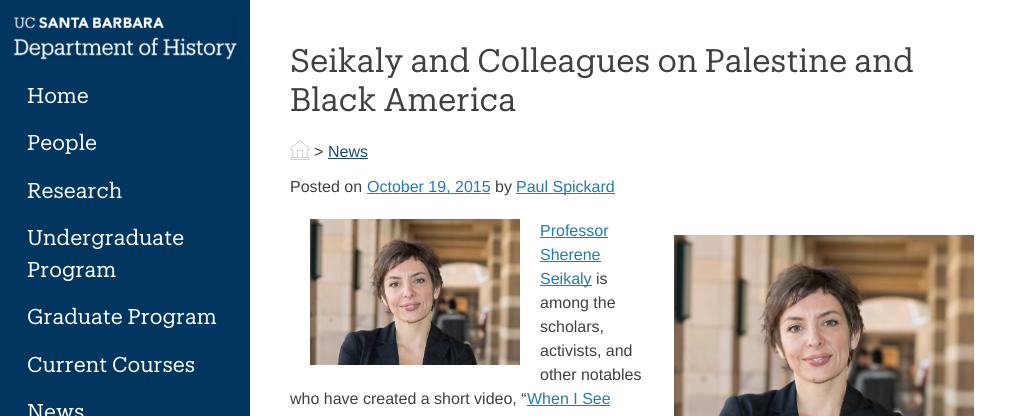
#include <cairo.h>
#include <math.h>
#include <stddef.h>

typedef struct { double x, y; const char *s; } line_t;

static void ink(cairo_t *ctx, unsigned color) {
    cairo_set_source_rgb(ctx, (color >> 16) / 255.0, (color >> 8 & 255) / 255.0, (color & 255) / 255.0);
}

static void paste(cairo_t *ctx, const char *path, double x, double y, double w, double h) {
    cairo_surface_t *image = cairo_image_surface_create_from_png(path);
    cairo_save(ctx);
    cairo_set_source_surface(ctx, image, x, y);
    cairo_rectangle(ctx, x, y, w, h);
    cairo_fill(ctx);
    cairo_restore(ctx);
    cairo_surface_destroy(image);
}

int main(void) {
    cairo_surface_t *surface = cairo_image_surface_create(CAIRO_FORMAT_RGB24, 1014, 416);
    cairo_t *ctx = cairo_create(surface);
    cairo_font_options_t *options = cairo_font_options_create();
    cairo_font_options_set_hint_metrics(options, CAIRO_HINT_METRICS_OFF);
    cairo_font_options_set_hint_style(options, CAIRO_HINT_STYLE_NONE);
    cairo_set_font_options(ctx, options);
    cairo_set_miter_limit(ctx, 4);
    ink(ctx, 0xFFFFFF);
    cairo_paint(ctx);
    ink(ctx, 0x003660);
    cairo_rectangle(ctx, 0, 0, 250, 416);
    cairo_fill(ctx);
    cairo_select_font_face(ctx, "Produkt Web", CAIRO_FONT_SLANT_NORMAL, CAIRO_FONT_WEIGHT_NORMAL);
    cairo_set_font_size(ctx, 32);
    ink(ctx, 0x404040);
    cairo_move_to(ctx, 290, 72);
    cairo_show_text(ctx, "Seikaly and Colleagues on Palestine and");
    cairo_move_to(ctx, 290, 111);
    cairo_show_text(ctx, "Black America");
    paste(ctx, "media/1.png", 290, 140, 20, 20);
    cairo_select_font_face(ctx, "Liberation Sans", CAIRO_FONT_SLANT_NORMAL, CAIRO_FONT_WEIGHT_NORMAL);
    cairo_set_font_size(ctx, 16);
    cairo_move_to(ctx, 314, 157);
    cairo_show_text(ctx, ">");
    ink(ctx, 0x194A6F);
    cairo_move_to(ctx, 328, 157);
    cairo_show_text(ctx, "News");
    cairo_rectangle(ctx, 328, 158, 40, 1);
    cairo_fill(ctx);
    ink(ctx, 0x404040);
    cairo_move_to(ctx, 290, 192);
    cairo_show_text(ctx, "Posted on");
    ink(ctx, 0x207CB1);
    cairo_rectangle(ctx, 367, 193, 123, 1);
    cairo_fill(ctx);
    cairo_move_to(ctx, 367, 192);
    cairo_show_text(ctx, "October 19, 2015");
    ink(ctx, 0x404040);
    cairo_move_to(ctx, 495, 192);
    cairo_show_text(ctx, "by");
    ink(ctx, 0x207CB1);
    cairo_rectangle(ctx, 516, 193, 99, 1);
    cairo_fill(ctx);
    cairo_move_to(ctx, 516, 192);
    cairo_show_text(ctx, "Paul Spickard");
    paste(ctx, "media/2.png", 310, 219, 210, 146);
    cairo_move_to(ctx, 540, 236);
    cairo_show_text(ctx, "Professor");
    cairo_rectangle(ctx, 540, 237, 68, 1);
    cairo_fill(ctx);
    cairo_move_to(ctx, 540, 260);
    cairo_show_text(ctx, "Sherene");
    cairo_rectangle(ctx, 540, 261, 61, 1);
    cairo_fill(ctx);
    cairo_rectangle(ctx, 540, 285, 52, 1);
    cairo_fill(ctx);
    cairo_move_to(ctx, 540, 284);
    cairo_show_text(ctx, "Seikaly");
    ink(ctx, 0x404040);
    {
        static const line_t items[] = {
            {596, 284, "is"},
            {540, 308, "among the"},
            {540, 332, "scholars,"},
            {540, 356, "activists, and"},
            {540, 380, "other notables"},
            {290, 404, "who have created a short video, “"},
        };
        for (size_t i = 0; i < sizeof items / sizeof *items; i++) {
            cairo_move_to(ctx, items[i].x, items[i].y);
            cairo_show_text(ctx, items[i].s);
        }
    }
    ink(ctx, 0x207CB1);
    cairo_move_to(ctx, 527, 404);
    cairo_show_text(ctx, "When I See");
    cairo_rectangle(ctx, 527, 405, 83, 1);
    cairo_fill(ctx);
    paste(ctx, "media/3.png", 674, 235, 300, 181);
    paste(ctx, "media/4.png", 13, 16, 224, 44);
    cairo_select_font_face(ctx, "Produkt Web", CAIRO_FONT_SLANT_NORMAL, CAIRO_FONT_WEIGHT_NORMAL);
    cairo_set_font_size(ctx, 21);
    ink(ctx, 0xFFFFFF);
    {
        static const line_t items[] = {
            {27, 103, "Home"},
            {27, 150, "People"},
            {27, 198, "Research"},
            {27, 245, "Undergraduate"},
            {27, 277, "Program"},
            {27, 324, "Graduate Program"},
            {27, 372, "Current Courses"},
            {27, 419, "News"},
        };
        for (size_t i = 0; i < sizeof items / sizeof *items; i++) {
            cairo_move_to(ctx, items[i].x, items[i].y);
            cairo_show_text(ctx, items[i].s);
        }
    }
    cairo_surface_write_to_png(surface, "image.png");
    cairo_font_options_destroy(options);
    cairo_destroy(ctx);
    cairo_surface_destroy(surface);
    return 0;
}
